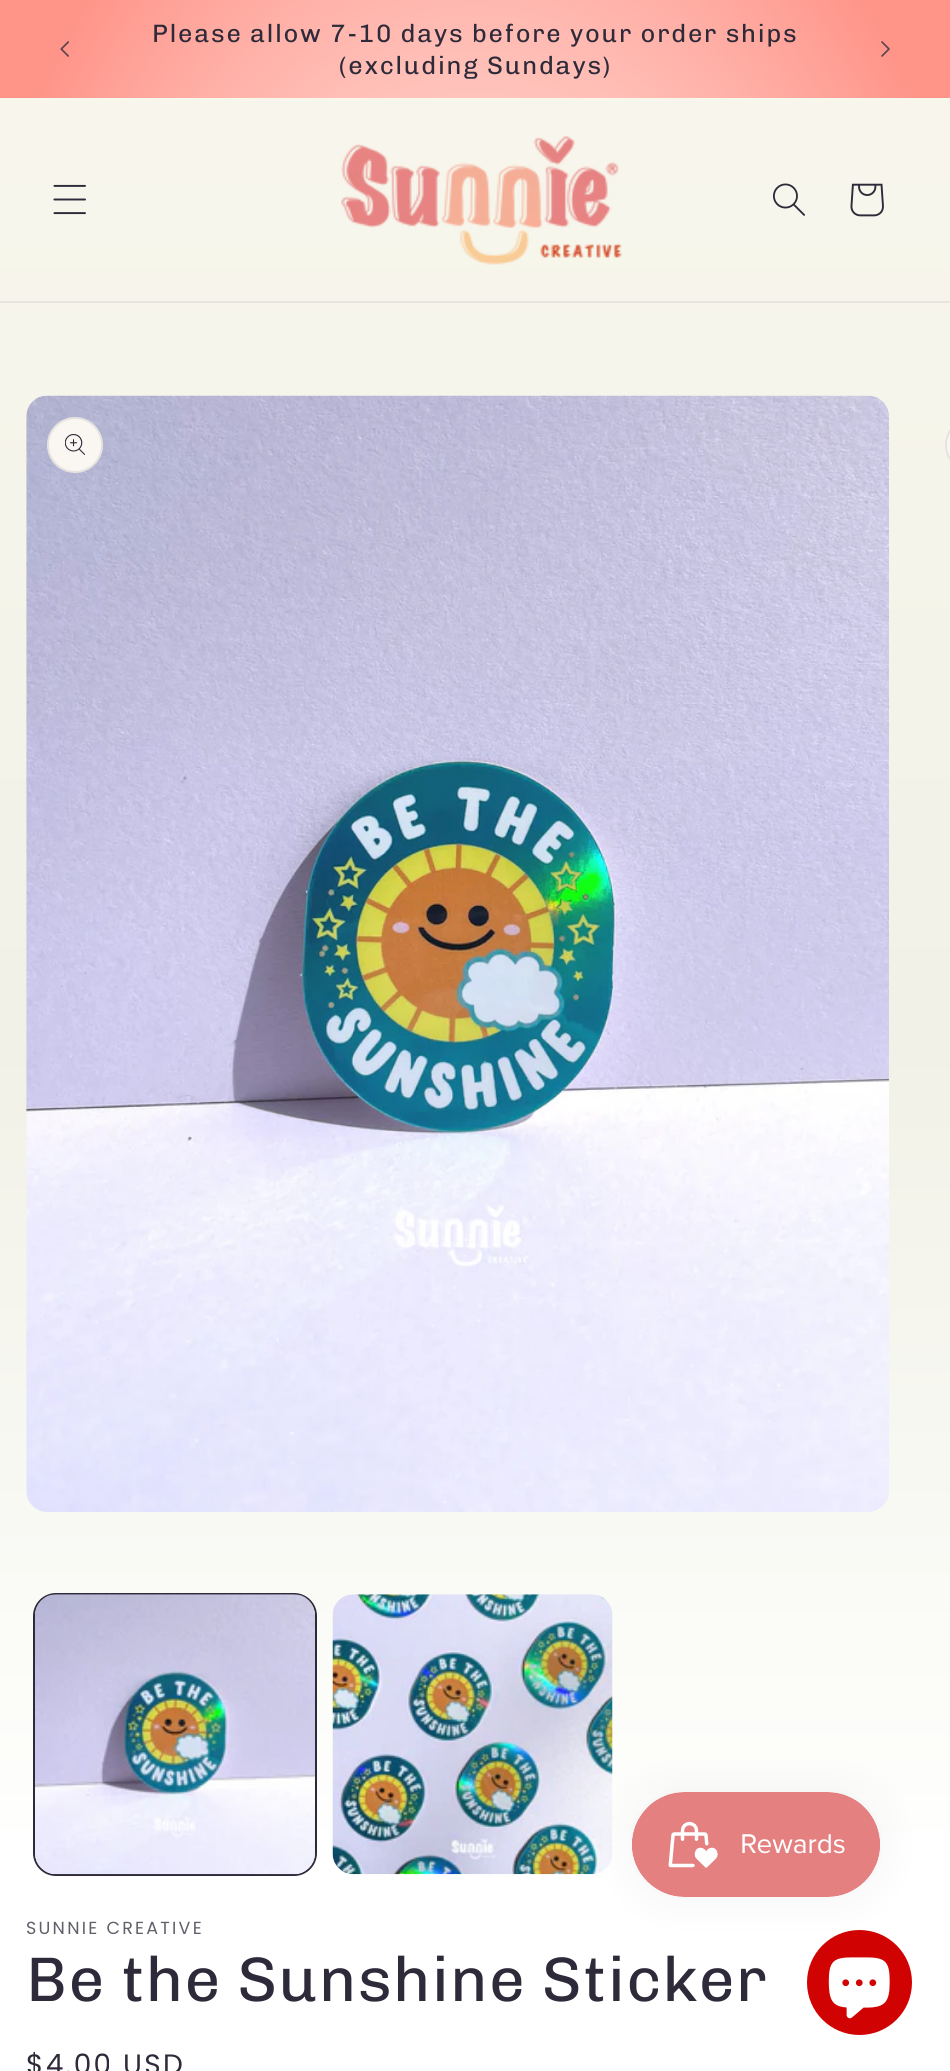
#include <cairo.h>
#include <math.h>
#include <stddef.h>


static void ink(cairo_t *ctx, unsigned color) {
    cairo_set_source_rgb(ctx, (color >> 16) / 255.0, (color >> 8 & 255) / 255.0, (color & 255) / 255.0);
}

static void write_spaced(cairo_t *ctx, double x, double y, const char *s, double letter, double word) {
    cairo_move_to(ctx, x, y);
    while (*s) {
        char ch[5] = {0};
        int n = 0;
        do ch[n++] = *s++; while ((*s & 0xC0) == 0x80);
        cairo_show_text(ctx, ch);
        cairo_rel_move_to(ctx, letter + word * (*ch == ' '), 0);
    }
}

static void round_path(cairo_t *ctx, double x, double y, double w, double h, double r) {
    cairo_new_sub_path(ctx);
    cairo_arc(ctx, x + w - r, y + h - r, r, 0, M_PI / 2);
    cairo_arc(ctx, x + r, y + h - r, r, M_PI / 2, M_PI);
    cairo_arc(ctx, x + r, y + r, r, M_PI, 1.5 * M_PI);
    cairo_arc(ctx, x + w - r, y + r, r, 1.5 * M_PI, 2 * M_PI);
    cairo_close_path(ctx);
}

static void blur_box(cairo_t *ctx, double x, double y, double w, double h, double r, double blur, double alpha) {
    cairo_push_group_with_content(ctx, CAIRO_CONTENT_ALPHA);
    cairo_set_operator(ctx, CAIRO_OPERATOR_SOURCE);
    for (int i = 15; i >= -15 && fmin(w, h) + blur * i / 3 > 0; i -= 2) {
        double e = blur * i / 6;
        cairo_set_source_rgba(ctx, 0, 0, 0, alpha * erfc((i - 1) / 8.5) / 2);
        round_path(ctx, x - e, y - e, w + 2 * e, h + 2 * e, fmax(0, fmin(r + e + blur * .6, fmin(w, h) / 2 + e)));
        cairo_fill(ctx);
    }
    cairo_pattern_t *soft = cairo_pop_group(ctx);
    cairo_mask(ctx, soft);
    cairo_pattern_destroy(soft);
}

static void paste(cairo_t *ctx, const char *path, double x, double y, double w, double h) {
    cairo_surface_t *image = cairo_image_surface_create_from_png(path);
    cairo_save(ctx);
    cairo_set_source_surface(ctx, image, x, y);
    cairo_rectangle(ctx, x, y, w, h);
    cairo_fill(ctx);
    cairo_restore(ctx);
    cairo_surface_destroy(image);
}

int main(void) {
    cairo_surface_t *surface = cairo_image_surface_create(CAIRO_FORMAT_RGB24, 950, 2071);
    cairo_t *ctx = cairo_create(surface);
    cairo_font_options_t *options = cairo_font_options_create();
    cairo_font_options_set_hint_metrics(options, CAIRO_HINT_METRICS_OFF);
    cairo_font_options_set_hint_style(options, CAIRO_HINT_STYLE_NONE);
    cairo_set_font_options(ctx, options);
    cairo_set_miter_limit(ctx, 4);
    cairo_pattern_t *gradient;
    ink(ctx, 0xFFFFFF);
    cairo_paint(ctx);
    gradient = cairo_pattern_create_linear(475, 0, 475, 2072);
    cairo_pattern_add_color_stop_rgba(gradient, 0, 0.976, 0.969, 0.929, 1);
    cairo_pattern_add_color_stop_rgba(gradient, 0.5, 0.945, 0.945, 0.906, 1);
    cairo_pattern_add_color_stop_rgba(gradient, 0.91, 1, 1, 0.996, 1);
    cairo_set_source(ctx, gradient);
    cairo_pattern_destroy(gradient);
    cairo_rectangle(ctx, 0, 98, 950, 252);
    cairo_fill(ctx);
    gradient = cairo_pattern_create_radial(0, 0, 0, 0, 0, 1);
    cairo_pattern_set_matrix(gradient, &(cairo_matrix_t){1.0 / 672, 0, 0, 1.0 / 1465, -1.0 * 475 / 672, -1.0 * 1036 / 1465});
    cairo_pattern_add_color_stop_rgba(gradient, 0, 1, 0.898, 0.898, 1);
    cairo_pattern_add_color_stop_rgba(gradient, 0.47, 1, 0.878, 0.855, 1);
    cairo_pattern_add_color_stop_rgba(gradient, 0.92, 1, 0.58, 0.537, 1);
    cairo_set_source(ctx, gradient);
    cairo_pattern_destroy(gradient);
    cairo_rectangle(ctx, 0, 0, 950, 98);
    cairo_fill(ctx);
    paste(ctx, "media/1.png", 60, 41, 9, 16);
    cairo_select_font_face(ctx, "Chivo", CAIRO_FONT_SLANT_NORMAL, CAIRO_FONT_WEIGHT_NORMAL);
    cairo_set_font_size(ctx, 25.2);
    ink(ctx, 0x2E2A39);
    write_spaced(ctx, 152, 42, "Please allow 7-10 days before your order ships", 1.75, 0);
    write_spaced(ctx, 339, 74, "(excluding Sundays)", 1.75, 0);
    paste(ctx, "media/2.png", 881, 41, 9, 16);
    ink(ctx, 0xE7E5DD);
    cairo_rectangle(ctx, 0, 301, 950, 2);
    cairo_fill(ctx);
    paste(ctx, "media/3.png", 53, 184, 33, 31);
    paste(ctx, "media/4.png", 341, 136, 281, 129);
    paste(ctx, "media/5.png", 773, 183, 32, 33);
    paste(ctx, "media/6.png", 850, 183, 34, 34);
    gradient = cairo_pattern_create_linear(475, 0, 475, 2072);
    cairo_pattern_add_color_stop_rgba(gradient, 0, 0.976, 0.969, 0.929, 1);
    cairo_pattern_add_color_stop_rgba(gradient, 0.5, 0.945, 0.945, 0.906, 1);
    cairo_pattern_add_color_stop_rgba(gradient, 0.91, 1, 1, 0.996, 1);
    cairo_set_source(ctx, gradient);
    cairo_pattern_destroy(gradient);
    cairo_rectangle(ctx, 0, 350, 950, 1480);
    cairo_fill(ctx);
    paste(ctx, "media/11.png", 332, 1594, 281, 281);
    ink(ctx, 0xD10202);
    cairo_arc(ctx, 859.5, 1982.5, 52.5, 0, 2 * M_PI);
    cairo_fill(ctx);
    paste(ctx, "media/12.png", 828, 1957, 62, 62);
    ink(ctx, 0x000000);
    blur_box(ctx, 632, 1792, 248, 105, 52.5, 22, 0.05);
    paste(ctx, "media/7.png", 632, 1792, 248, 105);
    paste(ctx, "media/8.png", 26, 395, 863, 1117);
    ink(ctx, 0xFAF7F2);
    cairo_arc(ctx, 75, 445, 28, 0, 2 * M_PI);
    cairo_fill(ctx);
    cairo_arc(ctx, 75, 445, 27, 0, 2 * M_PI);
    cairo_set_source_rgba(ctx, 0.18, 0.165, 0.224, 0.1);
    cairo_stroke(ctx);
    paste(ctx, "media/9.png", 65, 434, 20, 21);
    ink(ctx, 0xFAF7F2);
    cairo_new_path(ctx);
    cairo_move_to(ctx, 973, 417);
    cairo_line_to(ctx, 950, 417);
    cairo_line_to(ctx, 950, 473);
    cairo_line_to(ctx, 973, 473);
    cairo_curve_to(ctx, 957.5, 473, 945, 460.5, 945, 445);
    cairo_curve_to(ctx, 945, 429.5, 957.5, 417, 973, 417);
    cairo_close_path(ctx);
    cairo_fill(ctx);
    round_path(ctx, 946, 418, 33, 54, 27);
    cairo_set_source_rgba(ctx, 0.18, 0.165, 0.224, 0.1);
    cairo_stroke(ctx);
    round_path(ctx, 34, 1594, 282, 281, 22);
    ink(ctx, 0x2E2A39);
    cairo_stroke(ctx);
    paste(ctx, "media/10.png", 35, 1594, 280, 281);
    cairo_select_font_face(ctx, "Poppins", CAIRO_FONT_SLANT_NORMAL, CAIRO_FONT_WEIGHT_NORMAL);
    cairo_set_font_size(ctx, 17.5);
    ink(ctx, 0x625F6A);
    write_spaced(ctx, 26, 1934, "SUNNIE CREATIVE", 2.25, 0);
    cairo_select_font_face(ctx, "Chivo", CAIRO_FONT_SLANT_NORMAL, CAIRO_FONT_WEIGHT_NORMAL);
    cairo_set_font_size(ctx, 63);
    ink(ctx, 0x2E2A39);
    write_spaced(ctx, 26, 2001, "Be the Sunshine Sticker", 1.25, 0);
    cairo_select_font_face(ctx, "Poppins", CAIRO_FONT_SLANT_NORMAL, CAIRO_FONT_WEIGHT_NORMAL);
    cairo_set_font_size(ctx, 28);
    write_spaced(ctx, 26, 2074, "$4.00 USD", 2.25, 0);
    cairo_surface_write_to_png(surface, "image.png");
    cairo_font_options_destroy(options);
    cairo_destroy(ctx);
    cairo_surface_destroy(surface);
    return 0;
}
